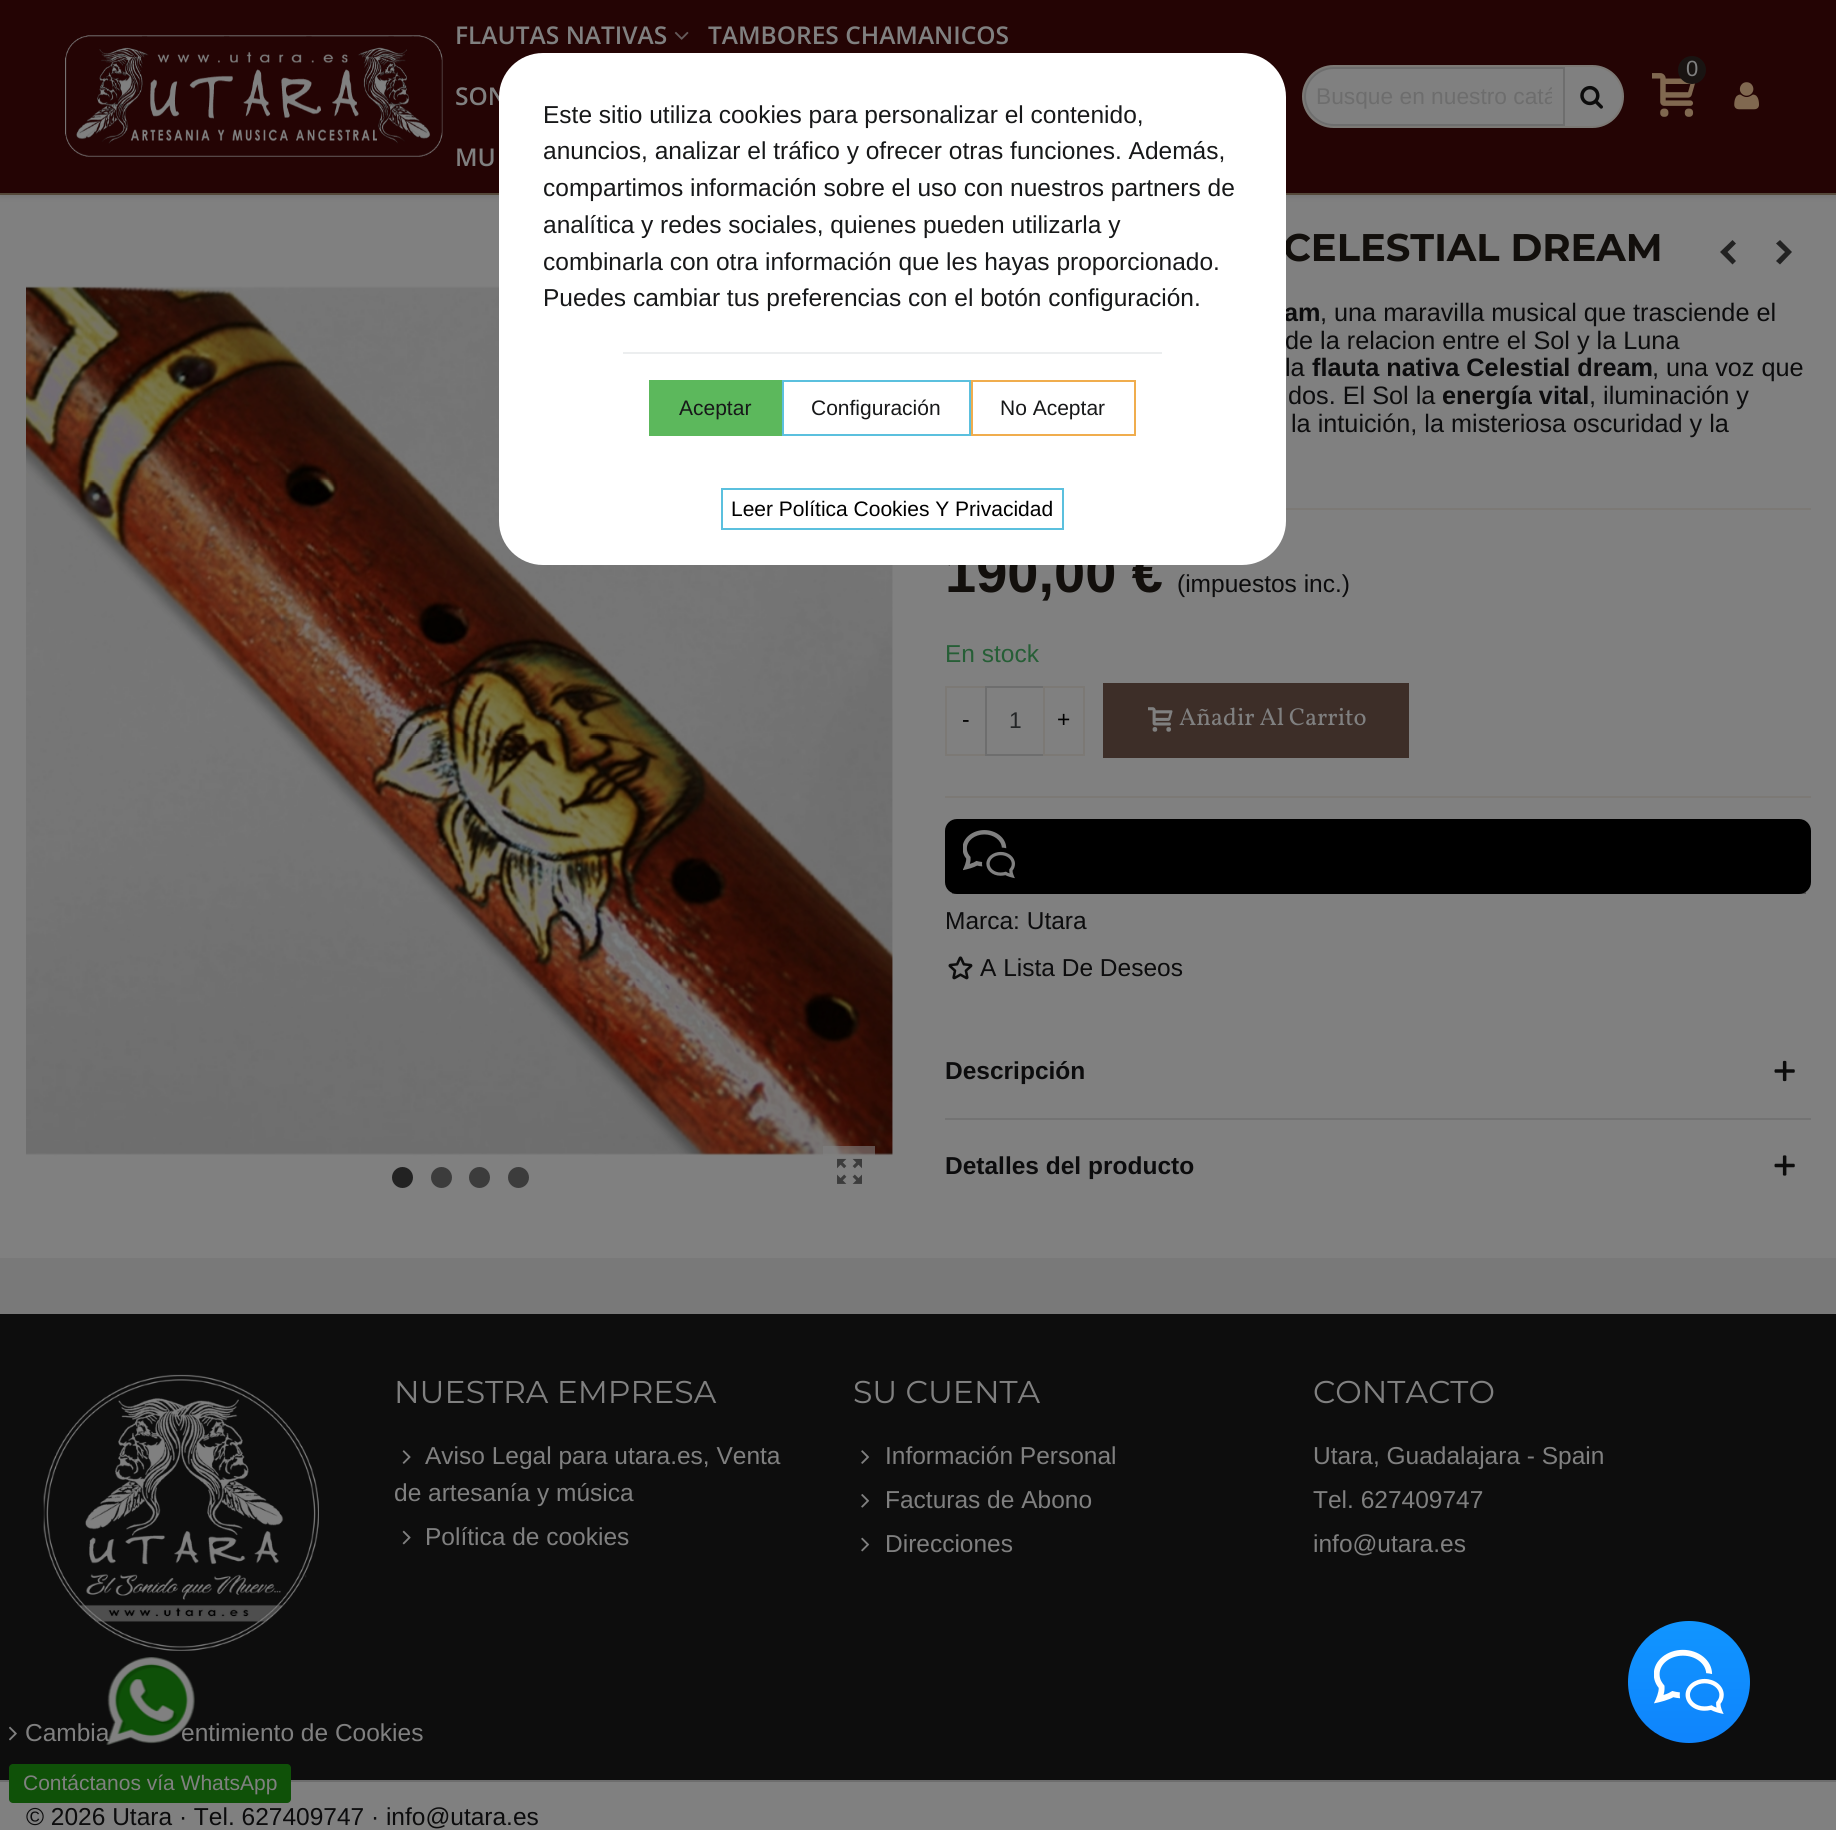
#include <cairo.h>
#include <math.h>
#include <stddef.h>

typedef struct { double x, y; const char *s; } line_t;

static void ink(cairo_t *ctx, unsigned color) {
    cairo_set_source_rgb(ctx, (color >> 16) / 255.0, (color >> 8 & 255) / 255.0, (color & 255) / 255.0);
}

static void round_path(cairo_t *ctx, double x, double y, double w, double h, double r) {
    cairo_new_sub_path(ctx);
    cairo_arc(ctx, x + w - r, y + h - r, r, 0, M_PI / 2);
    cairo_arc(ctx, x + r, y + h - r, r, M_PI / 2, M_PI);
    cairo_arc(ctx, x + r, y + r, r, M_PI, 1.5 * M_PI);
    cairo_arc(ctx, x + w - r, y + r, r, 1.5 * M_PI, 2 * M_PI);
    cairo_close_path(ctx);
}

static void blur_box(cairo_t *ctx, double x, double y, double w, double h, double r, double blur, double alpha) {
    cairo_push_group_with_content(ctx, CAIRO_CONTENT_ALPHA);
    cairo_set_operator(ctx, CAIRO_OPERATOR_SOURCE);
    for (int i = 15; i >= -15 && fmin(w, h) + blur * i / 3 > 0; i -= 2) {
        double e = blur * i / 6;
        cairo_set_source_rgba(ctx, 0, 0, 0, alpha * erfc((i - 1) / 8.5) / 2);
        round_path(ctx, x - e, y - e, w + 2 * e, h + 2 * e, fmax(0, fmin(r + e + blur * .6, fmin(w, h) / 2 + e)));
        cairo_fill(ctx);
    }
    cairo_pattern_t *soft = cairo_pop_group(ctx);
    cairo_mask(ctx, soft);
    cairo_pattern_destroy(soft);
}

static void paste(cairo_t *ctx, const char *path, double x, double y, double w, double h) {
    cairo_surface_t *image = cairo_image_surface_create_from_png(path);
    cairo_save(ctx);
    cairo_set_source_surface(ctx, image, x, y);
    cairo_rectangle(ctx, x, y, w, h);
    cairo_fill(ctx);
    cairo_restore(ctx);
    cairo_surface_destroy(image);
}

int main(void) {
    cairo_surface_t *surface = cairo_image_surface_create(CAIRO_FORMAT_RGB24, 1836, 1830);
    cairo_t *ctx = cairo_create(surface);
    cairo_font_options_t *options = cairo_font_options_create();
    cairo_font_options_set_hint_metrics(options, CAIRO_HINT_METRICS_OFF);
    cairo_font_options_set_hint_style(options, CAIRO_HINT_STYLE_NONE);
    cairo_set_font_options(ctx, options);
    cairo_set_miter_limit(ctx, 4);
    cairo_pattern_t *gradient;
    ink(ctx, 0x808080);
    cairo_paint(ctx);
    ink(ctx, 0x000000);
    blur_box(ctx, 0, 2, 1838, 194, 0, 3.5, 0.1);
    ink(ctx, 0x55493A);
    cairo_rectangle(ctx, 0, 193, 1836, 2);
    cairo_fill(ctx);
    ink(ctx, 0x240404);
    cairo_rectangle(ctx, 0, 0, 1836, 193);
    cairo_fill(ctx);
    paste(ctx, "media/1.png", 65, 35, 378, 122);
    cairo_select_font_face(ctx, "Open Sans SemiBold", CAIRO_FONT_SLANT_NORMAL, CAIRO_FONT_WEIGHT_NORMAL);
    cairo_set_font_size(ctx, 24.5);
    ink(ctx, 0x808080);
    cairo_move_to(ctx, 455, 44);
    cairo_show_text(ctx, "FLAUTAS NATIVAS");
    paste(ctx, "media/2.png", 674, 31, 15, 9);
    {
        static const line_t items[] = {
            {708, 44, "TAMBORES CHAMANICOS"},
            {455, 105, "SON"},
            {455, 166, "MU"},
        };
        for (size_t i = 0; i < sizeof items / sizeof *items; i++) {
            cairo_move_to(ctx, items[i].x, items[i].y);
            cairo_show_text(ctx, items[i].s);
        }
    }
    paste(ctx, "media/3.png", 1652, 73, 44, 44);
    ink(ctx, 0x191412);
    cairo_arc(ctx, 1692, 70, 14, 0, 2 * M_PI);
    cairo_fill(ctx);
    cairo_select_font_face(ctx, "Liberation Sans", CAIRO_FONT_SLANT_NORMAL, CAIRO_FONT_WEIGHT_NORMAL);
    cairo_set_font_size(ctx, 22);
    ink(ctx, 0x808080);
    cairo_move_to(ctx, 1686, 76);
    cairo_show_text(ctx, "0");
    round_path(ctx, 1303, 66, 320, 61, 30.5);
    cairo_fill_preserve(ctx);
    ink(ctx, 0x7C7975);
    cairo_stroke(ctx);
    cairo_new_path(ctx);
    cairo_move_to(ctx, 1333.5, 68);
    cairo_line_to(ctx, 1564, 68);
    cairo_line_to(ctx, 1564, 125);
    cairo_line_to(ctx, 1333.5, 125);
    cairo_curve_to(ctx, 1318, 125, 1305, 112, 1305, 96.5);
    cairo_curve_to(ctx, 1305, 81, 1318, 68, 1333.5, 68);
    cairo_close_path(ctx);
    ink(ctx, 0x6E6E6E);
    cairo_stroke(ctx);
    cairo_save(ctx);
    cairo_rectangle(ctx, 1316, 84, 236, 26);
    cairo_clip(ctx);
    cairo_set_font_size(ctx, 22.75);
    ink(ctx, 0x6D6D6D);
    cairo_move_to(ctx, 1316, 104);
    cairo_show_text(ctx, "Busque en nuestro catá");
    cairo_restore(ctx);
    paste(ctx, "media/4.png", 1580, 85, 23, 24);
    paste(ctx, "media/5.png", 1734, 82, 25, 28);
    paste(ctx, "media/6.png", 26, 286, 867, 870);
    ink(ctx, 0x222222);
    cairo_arc(ctx, 402.5, 1177.5, 10.5, 0, 2 * M_PI);
    cairo_fill(ctx);
    ink(ctx, 0x3C3C3C);
    cairo_arc(ctx, 441.5, 1177.5, 10.5, 0, 2 * M_PI);
    cairo_fill(ctx);
    cairo_arc(ctx, 479.5, 1177.5, 10.5, 0, 2 * M_PI);
    cairo_fill(ctx);
    cairo_arc(ctx, 518.5, 1177.5, 10.5, 0, 2 * M_PI);
    cairo_fill(ctx);
    cairo_set_source_rgba(ctx, 0.502, 0.502, 0.502, 0.6);
    cairo_rectangle(ctx, 823, 1146, 52, 9);
    cairo_fill(ctx);
    paste(ctx, "media/7.png", 837, 1158, 25, 26);
    cairo_select_font_face(ctx, "Montserrat", CAIRO_FONT_SLANT_NORMAL, CAIRO_FONT_WEIGHT_BOLD);
    cairo_set_font_size(ctx, 38.5);
    ink(ctx, 0x120F0C);
    cairo_move_to(ctx, 1283, 261);
    cairo_show_text(ctx, "CELESTIAL DREAM");
    ink(ctx, 0x222222);
    cairo_new_path(ctx);
    cairo_move_to(ctx, 1720, 252);
    cairo_line_to(ctx, 1732.5, 240);
    cairo_line_to(ctx, 1736, 243.5);
    cairo_line_to(ctx, 1727.5, 252);
    cairo_line_to(ctx, 1736, 261);
    cairo_line_to(ctx, 1732.5, 264.5);
    cairo_close_path(ctx);
    cairo_fill(ctx);
    cairo_new_path(ctx);
    cairo_move_to(ctx, 1776, 261);
    cairo_line_to(ctx, 1785, 252);
    cairo_line_to(ctx, 1776, 243.5);
    cairo_line_to(ctx, 1780, 240);
    cairo_line_to(ctx, 1792, 252);
    cairo_line_to(ctx, 1780, 264.5);
    cairo_close_path(ctx);
    cairo_fill(ctx);
    cairo_select_font_face(ctx, "Liberation Sans", CAIRO_FONT_SLANT_NORMAL, CAIRO_FONT_WEIGHT_BOLD);
    cairo_set_font_size(ctx, 25.25);
    ink(ctx, 0x0C0C0D);
    cairo_move_to(ctx, 1284, 321);
    cairo_show_text(ctx, "am");
    cairo_select_font_face(ctx, "Liberation Sans", CAIRO_FONT_SLANT_NORMAL, CAIRO_FONT_WEIGHT_NORMAL);
    {
        static const line_t items[] = {
            {1320, 321, ", una maravilla musical que trasciende el"},
            {1285, 349, "de la relacion entre el Sol y la Luna"},
            {1285, 376, "la"},
        };
        for (size_t i = 0; i < sizeof items / sizeof *items; i++) {
            cairo_move_to(ctx, items[i].x, items[i].y);
            cairo_show_text(ctx, items[i].s);
        }
    }
    cairo_select_font_face(ctx, "Liberation Sans", CAIRO_FONT_SLANT_NORMAL, CAIRO_FONT_WEIGHT_BOLD);
    cairo_move_to(ctx, 1312, 376);
    cairo_show_text(ctx, "flauta nativa Celestial dream");
    cairo_select_font_face(ctx, "Liberation Sans", CAIRO_FONT_SLANT_NORMAL, CAIRO_FONT_WEIGHT_NORMAL);
    cairo_move_to(ctx, 1652, 376);
    cairo_show_text(ctx, ", una voz que");
    cairo_move_to(ctx, 1288, 404);
    cairo_show_text(ctx, "dos. El Sol la");
    cairo_select_font_face(ctx, "Liberation Sans", CAIRO_FONT_SLANT_NORMAL, CAIRO_FONT_WEIGHT_BOLD);
    cairo_move_to(ctx, 1442, 404);
    cairo_show_text(ctx, "energía vital");
    cairo_select_font_face(ctx, "Liberation Sans", CAIRO_FONT_SLANT_NORMAL, CAIRO_FONT_WEIGHT_NORMAL);
    cairo_move_to(ctx, 1589, 404);
    cairo_show_text(ctx, ", iluminación y");
    cairo_move_to(ctx, 1291, 432);
    cairo_show_text(ctx, "la intuición, la misteriosa oscuridad y la");
    ink(ctx, 0x7C7975);
    cairo_rectangle(ctx, 1286, 508, 525, 2);
    cairo_fill(ctx);
    cairo_select_font_face(ctx, "Liberation Sans", CAIRO_FONT_SLANT_NORMAL, CAIRO_FONT_WEIGHT_BOLD);
    cairo_set_font_size(ctx, 56);
    ink(ctx, 0x120F0C);
    cairo_move_to(ctx, 945, 592);
    cairo_show_text(ctx, "190,00 €");
    cairo_select_font_face(ctx, "Liberation Sans", CAIRO_FONT_SLANT_NORMAL, CAIRO_FONT_WEIGHT_NORMAL);
    cairo_set_font_size(ctx, 24.5);
    ink(ctx, 0x0C0C0D);
    cairo_move_to(ctx, 1177, 592);
    cairo_show_text(ctx, "(impuestos inc.)");
    ink(ctx, 0x265E36);
    cairo_move_to(ctx, 945, 662);
    cairo_show_text(ctx, "En stock");
    cairo_rectangle(ctx, 946, 687, 40, 68);
    ink(ctx, 0x7C7975);
    cairo_stroke(ctx);
    cairo_set_font_size(ctx, 22.75);
    ink(ctx, 0x000000);
    cairo_move_to(ctx, 962, 727);
    cairo_show_text(ctx, "-");
    cairo_rectangle(ctx, 986, 687, 58, 68);
    ink(ctx, 0x6E6E6E);
    cairo_stroke(ctx);
    ink(ctx, 0x232526);
    cairo_move_to(ctx, 1009, 728);
    cairo_show_text(ctx, "1");
    cairo_rectangle(ctx, 1044, 687, 40, 68);
    ink(ctx, 0x7C7975);
    cairo_stroke(ctx);
    ink(ctx, 0x000000);
    cairo_move_to(ctx, 1057, 727);
    cairo_show_text(ctx, "+");
    ink(ctx, 0x3D2E28);
    cairo_rectangle(ctx, 1103, 683, 306, 75);
    cairo_fill(ctx);
    paste(ctx, "media/8.png", 1148, 707, 25, 25);
    cairo_select_font_face(ctx, "Vollkorn", CAIRO_FONT_SLANT_NORMAL, CAIRO_FONT_WEIGHT_NORMAL);
    cairo_set_font_size(ctx, 24.5);
    ink(ctx, 0x808080);
    cairo_move_to(ctx, 1179, 725);
    cairo_show_text(ctx, "Añadir Al Carrito");
    ink(ctx, 0x7C7975);
    cairo_rectangle(ctx, 945, 796, 866, 2);
    cairo_fill(ctx);
    ink(ctx, 0x000000);
    round_path(ctx, 945, 819, 866, 75, 12);
    cairo_fill(ctx);
    cairo_set_source_rgba(ctx, 0, 0, 0, 0.3);
    cairo_rectangle(ctx, 952, 892, 854, 2);
    cairo_fill(ctx);
    paste(ctx, "media/9.png", 963, 830, 52, 49);
    cairo_select_font_face(ctx, "Liberation Sans", CAIRO_FONT_SLANT_NORMAL, CAIRO_FONT_WEIGHT_NORMAL);
    ink(ctx, 0x0C0C0D);
    cairo_move_to(ctx, 945, 929);
    cairo_show_text(ctx, "Marca: Utara");
    paste(ctx, "media/10.png", 948, 956, 25, 24);
    cairo_move_to(ctx, 980, 976);
    cairo_show_text(ctx, "A Lista De Deseos");
    ink(ctx, 0x737373);
    cairo_rectangle(ctx, 945, 1118, 866, 2);
    cairo_fill(ctx);
    cairo_select_font_face(ctx, "Liberation Sans", CAIRO_FONT_SLANT_NORMAL, CAIRO_FONT_WEIGHT_BOLD);
    ink(ctx, 0x0C0C0D);
    cairo_move_to(ctx, 945, 1079);
    cairo_show_text(ctx, "Descripción");
    paste(ctx, "media/11.png", 1774, 1060, 21, 22);
    cairo_move_to(ctx, 945, 1174);
    cairo_show_text(ctx, "Detalles del producto");
    paste(ctx, "media/12.png", 1774, 1155, 21, 21);
    ink(ctx, 0x0D0D0D);
    cairo_rectangle(ctx, 0, 1314, 1836, 466);
    cairo_fill(ctx);
    paste(ctx, "media/13.png", 43, 1374, 276, 277);
    cairo_select_font_face(ctx, "Montserrat", CAIRO_FONT_SLANT_NORMAL, CAIRO_FONT_WEIGHT_NORMAL);
    cairo_set_font_size(ctx, 31.5);
    ink(ctx, 0x808080);
    cairo_move_to(ctx, 394, 1403);
    cairo_show_text(ctx, "NUESTRA EMPRESA");
    paste(ctx, "media/14.png", 402, 1450, 9, 14);
    cairo_select_font_face(ctx, "Liberation Sans", CAIRO_FONT_SLANT_NORMAL, CAIRO_FONT_WEIGHT_NORMAL);
    cairo_set_font_size(ctx, 24.5);
    cairo_move_to(ctx, 425, 1464);
    cairo_show_text(ctx, "Aviso Legal para utara.es, Venta");
    cairo_move_to(ctx, 394, 1501);
    cairo_show_text(ctx, "de artesanía y música");
    paste(ctx, "media/15.png", 402, 1530, 9, 15);
    cairo_move_to(ctx, 425, 1545);
    cairo_show_text(ctx, "Política de cookies");
    cairo_select_font_face(ctx, "Montserrat", CAIRO_FONT_SLANT_NORMAL, CAIRO_FONT_WEIGHT_NORMAL);
    cairo_set_font_size(ctx, 31.5);
    cairo_move_to(ctx, 853, 1403);
    cairo_show_text(ctx, "SU CUENTA");
    paste(ctx, "media/16.png", 861, 1450, 9, 14);
    cairo_select_font_face(ctx, "Liberation Sans", CAIRO_FONT_SLANT_NORMAL, CAIRO_FONT_WEIGHT_NORMAL);
    cairo_set_font_size(ctx, 24.5);
    cairo_move_to(ctx, 885, 1464);
    cairo_show_text(ctx, "Información Personal");
    paste(ctx, "media/17.png", 861, 1494, 9, 14);
    cairo_move_to(ctx, 885, 1508);
    cairo_show_text(ctx, "Facturas de Abono");
    paste(ctx, "media/18.png", 861, 1537, 9, 15);
    cairo_move_to(ctx, 885, 1552);
    cairo_show_text(ctx, "Direcciones");
    cairo_select_font_face(ctx, "Montserrat", CAIRO_FONT_SLANT_NORMAL, CAIRO_FONT_WEIGHT_NORMAL);
    cairo_set_font_size(ctx, 31.5);
    cairo_move_to(ctx, 1313, 1403);
    cairo_show_text(ctx, "CONTACTO");
    cairo_select_font_face(ctx, "Liberation Sans", CAIRO_FONT_SLANT_NORMAL, CAIRO_FONT_WEIGHT_NORMAL);
    cairo_set_font_size(ctx, 24.5);
    {
        static const line_t items[] = {
            {1313, 1464, "Utara, Guadalajara - Spain"},
            {1313, 1508, "Tel. 627409747"},
            {1313, 1552, "info@utara.es"},
        };
        for (size_t i = 0; i < sizeof items / sizeof *items; i++) {
            cairo_move_to(ctx, items[i].x, items[i].y);
            cairo_show_text(ctx, items[i].s);
        }
    }
    paste(ctx, "media/19.png", 9, 1726, 8, 15);
    cairo_move_to(ctx, 25, 1741);
    cairo_show_text(ctx, "Cambia");
    cairo_move_to(ctx, 181, 1741);
    cairo_show_text(ctx, "entimiento de Cookies");
    ink(ctx, 0x797979);
    cairo_rectangle(ctx, 0, 1258, 1836, 56);
    cairo_fill(ctx);
    paste(ctx, "media/20.png", 106, 1657, 89, 88);
    ink(ctx, 0x6D6D6D);
    cairo_rectangle(ctx, 0, 1780, 1836, 2);
    cairo_fill(ctx);
    ink(ctx, 0x0F5108);
    round_path(ctx, 9, 1764, 282, 39, 4);
    cairo_fill(ctx);
    cairo_set_font_size(ctx, 21);
    ink(ctx, 0x808080);
    cairo_move_to(ctx, 23, 1790);
    cairo_show_text(ctx, "Contáctanos vía WhatsApp");
    cairo_set_font_size(ctx, 24.5);
    ink(ctx, 0x0C0C0D);
    cairo_move_to(ctx, 26, 1825);
    cairo_show_text(ctx, "© 2026 Utara · Tel. 627409747 · info@utara.es");
    ink(ctx, 0xFFFFFF);
    round_path(ctx, 499, 53, 787, 512, 44);
    cairo_fill(ctx);
    ink(ctx, 0x171819);
    {
        static const line_t items[] = {
            {543, 123, "Este sitio utiliza cookies para personalizar el contenido,"},
            {543, 159, "anuncios, analizar el tráfico y ofrecer otras funciones. Además,"},
            {543, 196, "compartimos información sobre el uso con nuestros partners de"},
            {543, 233, "analítica y redes sociales, quienes pueden utilizarla y"},
            {543, 270, "combinarla con otra información que les hayas proporcionado."},
            {543, 306, "Puedes cambiar tus preferencias con el botón configuración."},
        };
        for (size_t i = 0; i < sizeof items / sizeof *items; i++) {
            cairo_move_to(ctx, items[i].x, items[i].y);
            cairo_show_text(ctx, items[i].s);
        }
    }
    ink(ctx, 0xECEEEF);
    cairo_rectangle(ctx, 623, 352, 539, 2);
    cairo_fill(ctx);
    ink(ctx, 0x5CB85C);
    cairo_rectangle(ctx, 649, 380, 133, 56);
    cairo_fill(ctx);
    cairo_set_font_size(ctx, 21);
    ink(ctx, 0x171819);
    cairo_move_to(ctx, 679, 415);
    cairo_show_text(ctx, "Aceptar");
    cairo_rectangle(ctx, 783, 381, 187, 54);
    ink(ctx, 0x5BC0DE);
    cairo_stroke(ctx);
    ink(ctx, 0x171819);
    cairo_move_to(ctx, 811, 415);
    cairo_show_text(ctx, "Configuración");
    cairo_rectangle(ctx, 972, 381, 163, 54);
    ink(ctx, 0xF0AD4E);
    cairo_stroke(ctx);
    ink(ctx, 0x171819);
    cairo_move_to(ctx, 1000, 415);
    cairo_show_text(ctx, "No Aceptar");
    cairo_rectangle(ctx, 722, 489, 341, 40);
    ink(ctx, 0x5BC0DE);
    cairo_stroke(ctx);
    ink(ctx, 0x000000);
    cairo_move_to(ctx, 731, 516);
    cairo_show_text(ctx, "Leer Política Cookies Y Privacidad");
    gradient = cairo_pattern_create_linear(1689, 1743, 1689, 1621);
    cairo_pattern_add_color_stop_rgba(gradient, 0, 0.059, 0.518, 0.992, 1);
    cairo_pattern_add_color_stop_rgba(gradient, 1, 0.063, 0.584, 1, 1);
    cairo_set_source(ctx, gradient);
    cairo_pattern_destroy(gradient);
    cairo_new_path(ctx);
    cairo_arc(ctx, 1689, 1682, 61, 0, 2 * M_PI);
    cairo_fill(ctx);
    paste(ctx, "media/21.png", 1654, 1649, 70, 65);
    cairo_surface_write_to_png(surface, "image.png");
    cairo_font_options_destroy(options);
    cairo_destroy(ctx);
    cairo_surface_destroy(surface);
    return 0;
}
